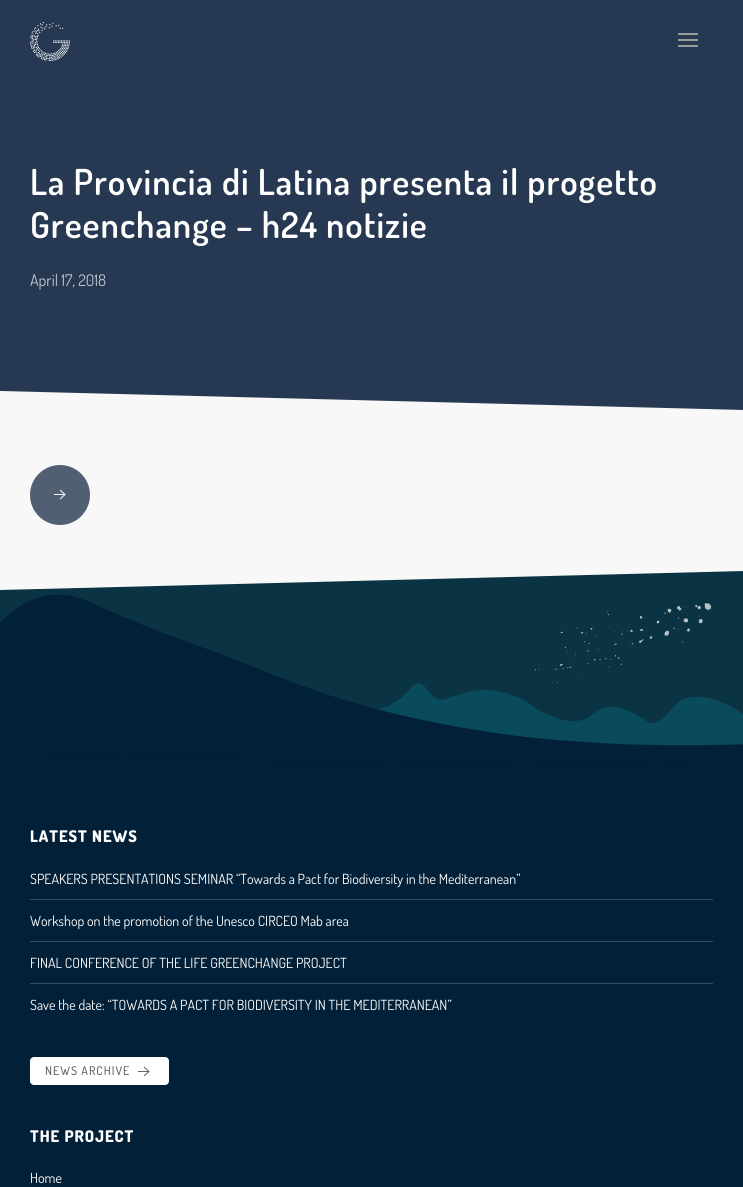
#include <cairo.h>
#include <math.h>
#include <stddef.h>

typedef struct { double x, y, w, h; unsigned color; } box_t;

static void ink(cairo_t *ctx, unsigned color) {
    cairo_set_source_rgb(ctx, (color >> 16) / 255.0, (color >> 8 & 255) / 255.0, (color & 255) / 255.0);
}

static void write_spaced(cairo_t *ctx, double x, double y, const char *s, double letter, double word) {
    cairo_move_to(ctx, x, y);
    while (*s) {
        char ch[5] = {0};
        int n = 0;
        do ch[n++] = *s++; while ((*s & 0xC0) == 0x80);
        cairo_show_text(ctx, ch);
        cairo_rel_move_to(ctx, letter + word * (*ch == ' '), 0);
    }
}

static void round_path(cairo_t *ctx, double x, double y, double w, double h, double r) {
    cairo_new_sub_path(ctx);
    cairo_arc(ctx, x + w - r, y + h - r, r, 0, M_PI / 2);
    cairo_arc(ctx, x + r, y + h - r, r, M_PI / 2, M_PI);
    cairo_arc(ctx, x + r, y + r, r, M_PI, 1.5 * M_PI);
    cairo_arc(ctx, x + w - r, y + r, r, 1.5 * M_PI, 2 * M_PI);
    cairo_close_path(ctx);
}

static void paste(cairo_t *ctx, const char *path, double x, double y, double w, double h) {
    cairo_surface_t *image = cairo_image_surface_create_from_png(path);
    cairo_save(ctx);
    cairo_set_source_surface(ctx, image, x, y);
    cairo_rectangle(ctx, x, y, w, h);
    cairo_fill(ctx);
    cairo_restore(ctx);
    cairo_surface_destroy(image);
}

int main(void) {
    cairo_surface_t *surface = cairo_image_surface_create(CAIRO_FORMAT_RGB24, 743, 1187);
    cairo_t *ctx = cairo_create(surface);
    cairo_font_options_t *options = cairo_font_options_create();
    cairo_font_options_set_hint_metrics(options, CAIRO_HINT_METRICS_OFF);
    cairo_font_options_set_hint_style(options, CAIRO_HINT_STYLE_NONE);
    cairo_set_font_options(ctx, options);
    cairo_set_miter_limit(ctx, 4);
    ink(ctx, 0x273952);
    cairo_paint(ctx);
    paste(ctx, "media/1.png", 30, 22, 40, 39);
    {
        static const box_t items[] = {
            {678, 39, 20, 2, 0x999999},
            {678, 33, 20, 2, 0x999999},
            {678, 45, 20, 2, 0x999999},
        };
        for (size_t i = 0; i < sizeof items / sizeof *items; i++) {
            ink(ctx, items[i].color);
            cairo_rectangle(ctx, items[i].x, items[i].y, items[i].w, items[i].h);
            cairo_fill(ctx);
        }
    }
    cairo_select_font_face(ctx, "Dosis SemiBold", CAIRO_FONT_SLANT_NORMAL, CAIRO_FONT_WEIGHT_NORMAL);
    cairo_set_font_size(ctx, 35.75);
    ink(ctx, 0xFFFFFF);
    write_spaced(ctx, 30, 195, "La Provincia di Latina presenta il progetto", 1, 0);
    write_spaced(ctx, 30, 238, "Greenchange – h24 notizie", 1, 0);
    cairo_select_font_face(ctx, "Dosis", CAIRO_FONT_SLANT_NORMAL, CAIRO_FONT_WEIGHT_NORMAL);
    cairo_set_font_size(ctx, 16);
    ink(ctx, 0xBEC4CB);
    cairo_move_to(ctx, 30, 286);
    cairo_show_text(ctx, "April 17, 2018");
    ink(ctx, 0xF8F8F8);
    cairo_rectangle(ctx, 0, 465, 743, 51);
    cairo_fill(ctx);
    cairo_new_path(ctx);
    cairo_move_to(ctx, 0, 391);
    cairo_line_to(ctx, 743, 410);
    cairo_line_to(ctx, 743, 485);
    cairo_line_to(ctx, 0, 465);
    cairo_close_path(ctx);
    cairo_fill(ctx);
    ink(ctx, 0x0A3443);
    cairo_rectangle(ctx, 0, 571, 743, 23);
    cairo_fill(ctx);
    ink(ctx, 0xF8F8F8);
    cairo_new_path(ctx);
    cairo_move_to(ctx, 0, 516);
    cairo_line_to(ctx, 743, 496);
    cairo_line_to(ctx, 743, 571);
    cairo_line_to(ctx, 0, 590);
    cairo_close_path(ctx);
    cairo_fill(ctx);
    ink(ctx, 0x515F73);
    cairo_arc(ctx, 60, 495, 30, 0, 2 * M_PI);
    cairo_fill(ctx);
    paste(ctx, "media/2.png", 54, 489, 12, 11);
    paste(ctx, "media/3.png", 0, 594, 743, 191);
    ink(ctx, 0x022038);
    cairo_rectangle(ctx, 0, 785, 743, 402);
    cairo_fill(ctx);
    cairo_select_font_face(ctx, "Dosis ExtraBold", CAIRO_FONT_SLANT_NORMAL, CAIRO_FONT_WEIGHT_NORMAL);
    ink(ctx, 0xFFFFFF);
    write_spaced(ctx, 30, 842, "LATEST NEWS", 1, 0);
    cairo_select_font_face(ctx, "Dosis", CAIRO_FONT_SLANT_NORMAL, CAIRO_FONT_WEIGHT_NORMAL);
    cairo_set_font_size(ctx, 14);
    cairo_move_to(ctx, 30, 884);
    cairo_show_text(ctx, "SPEAKERS PRESENTATIONS SEMINAR “Towards a Pact for Biodiversity in the Mediterranean”");
    ink(ctx, 0x354D60);
    cairo_rectangle(ctx, 30, 899, 683, 1);
    cairo_fill(ctx);
    ink(ctx, 0xFFFFFF);
    cairo_move_to(ctx, 30, 926);
    cairo_show_text(ctx, "Workshop on the promotion of the Unesco CIRCEO Mab area");
    ink(ctx, 0x354D60);
    cairo_rectangle(ctx, 30, 941, 683, 1);
    cairo_fill(ctx);
    ink(ctx, 0xFFFFFF);
    cairo_move_to(ctx, 30, 968);
    cairo_show_text(ctx, "FINAL CONFERENCE OF THE LIFE GREENCHANGE PROJECT");
    ink(ctx, 0x354D60);
    cairo_rectangle(ctx, 30, 983, 683, 1);
    cairo_fill(ctx);
    ink(ctx, 0xFFFFFF);
    cairo_move_to(ctx, 30, 1010);
    cairo_show_text(ctx, "Save the date: “TOWARDS A PACT FOR BIODIVERSITY IN THE MEDITERRANEAN”");
    round_path(ctx, 30, 1057, 139, 28, 4);
    cairo_fill(ctx);
    cairo_select_font_face(ctx, "Dosis Medium", CAIRO_FONT_SLANT_NORMAL, CAIRO_FONT_WEIGHT_NORMAL);
    cairo_set_font_size(ctx, 12);
    ink(ctx, 0x666666);
    write_spaced(ctx, 45, 1075, "NEWS ARCHIVE", 1, 0);
    paste(ctx, "media/4.png", 138, 1066, 12, 11);
    cairo_select_font_face(ctx, "Dosis ExtraBold", CAIRO_FONT_SLANT_NORMAL, CAIRO_FONT_WEIGHT_NORMAL);
    cairo_set_font_size(ctx, 16);
    ink(ctx, 0xFFFFFF);
    write_spaced(ctx, 30, 1142, "THE PROJECT", 1, 0);
    cairo_select_font_face(ctx, "Dosis", CAIRO_FONT_SLANT_NORMAL, CAIRO_FONT_WEIGHT_NORMAL);
    cairo_set_font_size(ctx, 14);
    cairo_move_to(ctx, 30, 1183);
    cairo_show_text(ctx, "Home");
    cairo_surface_write_to_png(surface, "image.png");
    cairo_font_options_destroy(options);
    cairo_destroy(ctx);
    cairo_surface_destroy(surface);
    return 0;
}
